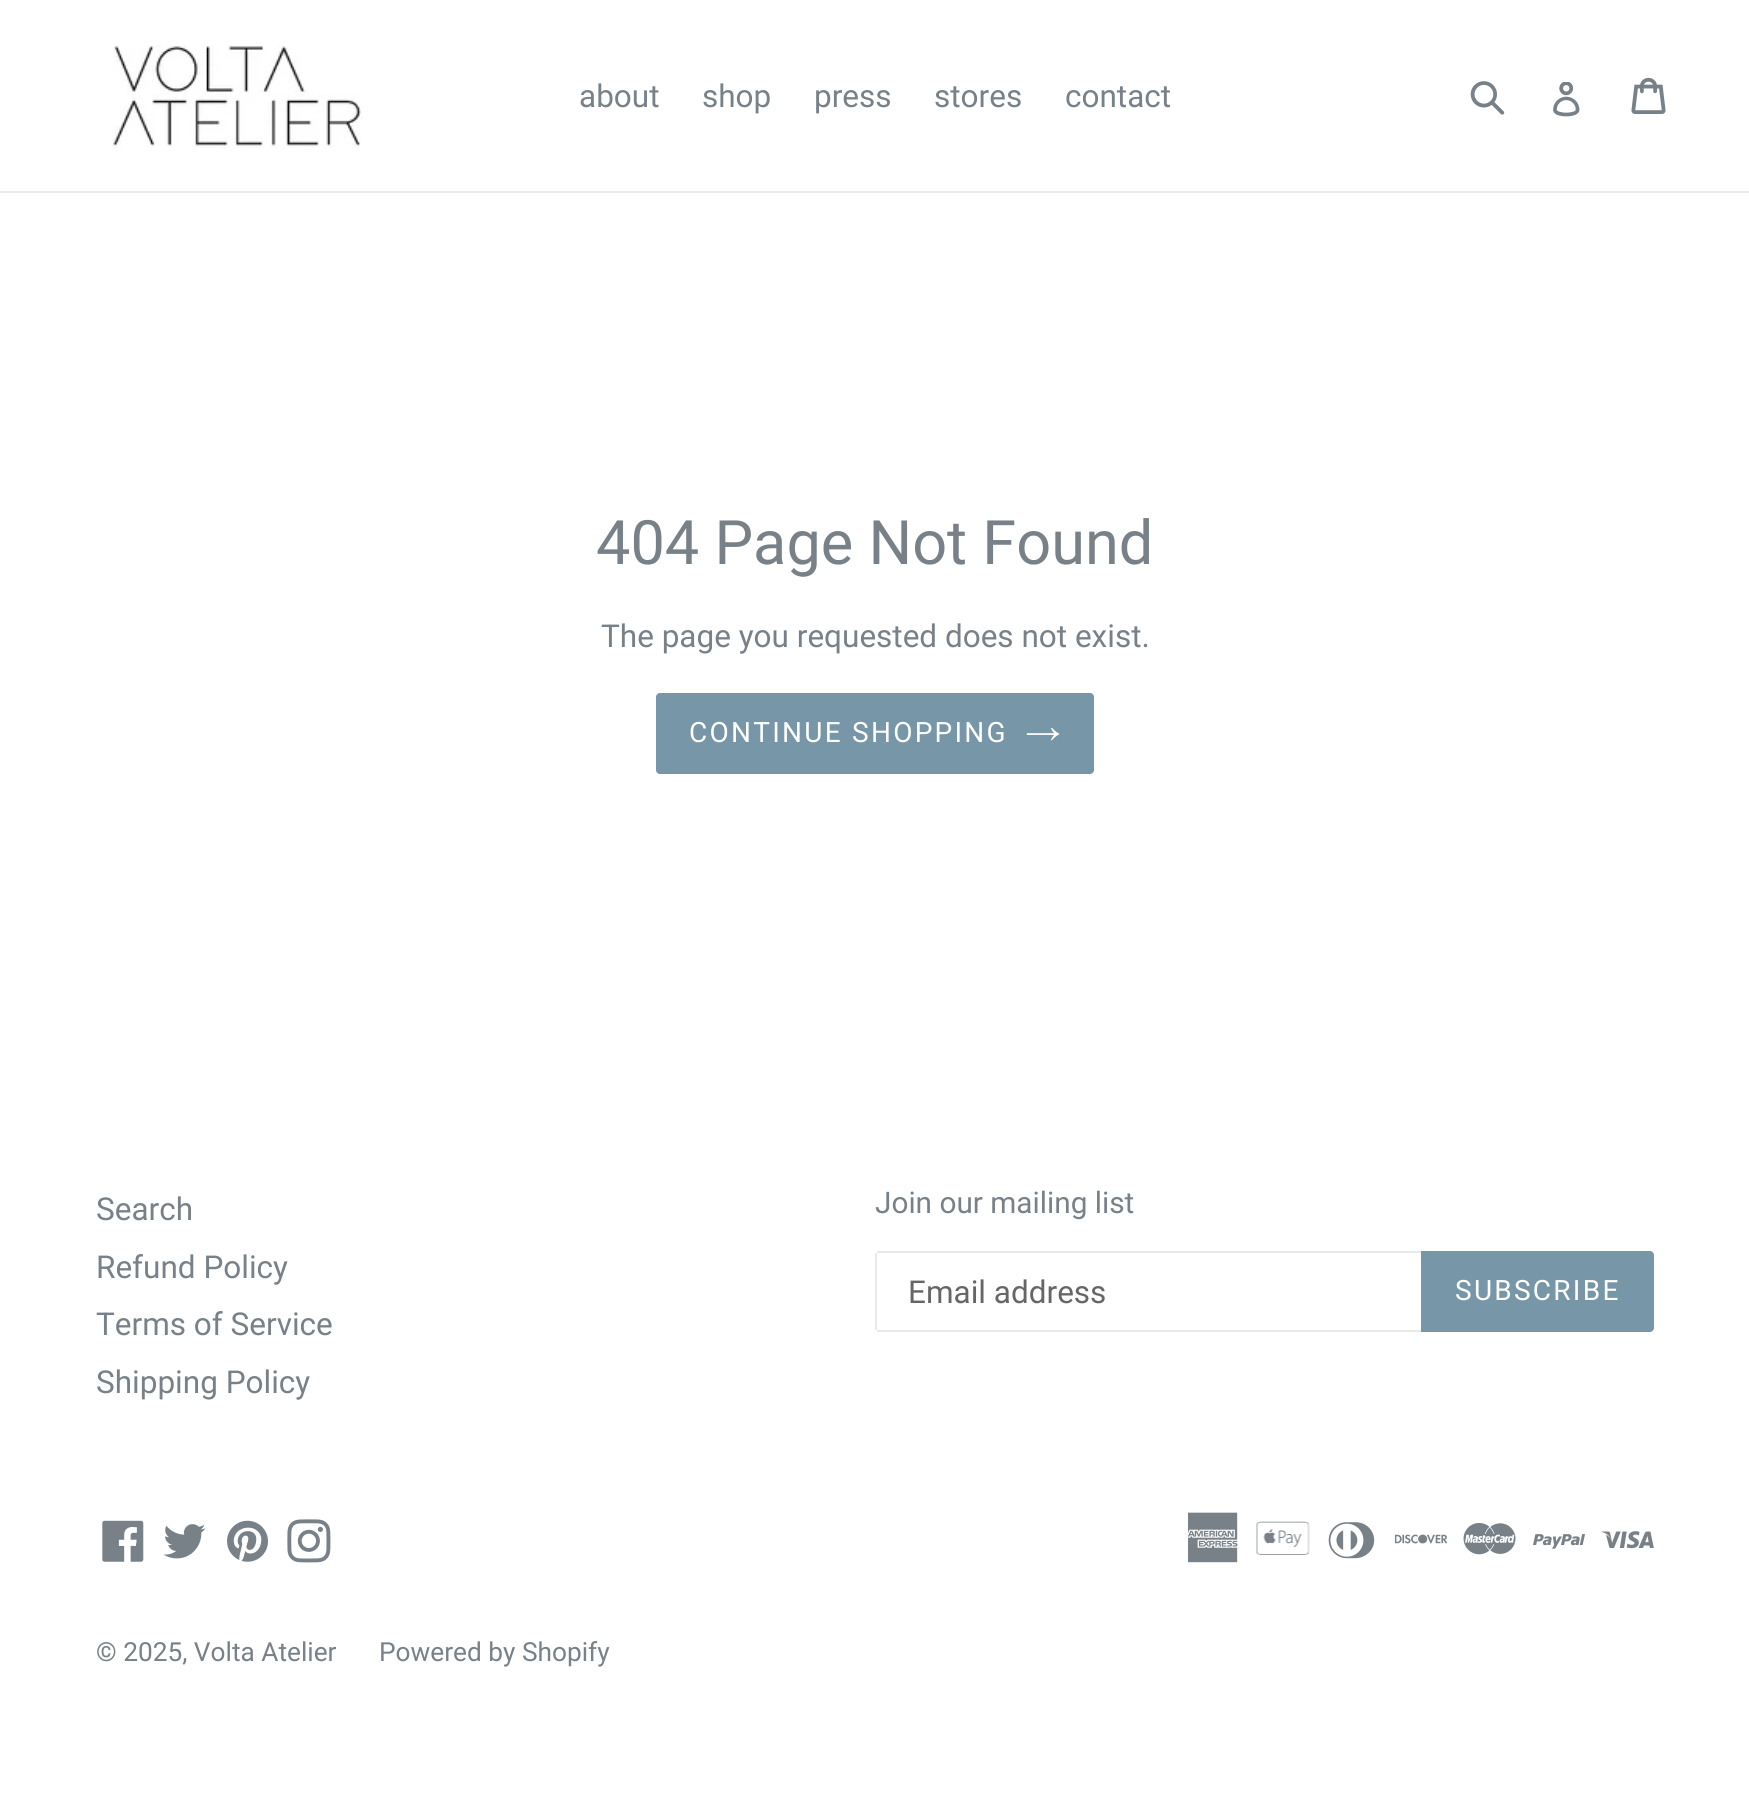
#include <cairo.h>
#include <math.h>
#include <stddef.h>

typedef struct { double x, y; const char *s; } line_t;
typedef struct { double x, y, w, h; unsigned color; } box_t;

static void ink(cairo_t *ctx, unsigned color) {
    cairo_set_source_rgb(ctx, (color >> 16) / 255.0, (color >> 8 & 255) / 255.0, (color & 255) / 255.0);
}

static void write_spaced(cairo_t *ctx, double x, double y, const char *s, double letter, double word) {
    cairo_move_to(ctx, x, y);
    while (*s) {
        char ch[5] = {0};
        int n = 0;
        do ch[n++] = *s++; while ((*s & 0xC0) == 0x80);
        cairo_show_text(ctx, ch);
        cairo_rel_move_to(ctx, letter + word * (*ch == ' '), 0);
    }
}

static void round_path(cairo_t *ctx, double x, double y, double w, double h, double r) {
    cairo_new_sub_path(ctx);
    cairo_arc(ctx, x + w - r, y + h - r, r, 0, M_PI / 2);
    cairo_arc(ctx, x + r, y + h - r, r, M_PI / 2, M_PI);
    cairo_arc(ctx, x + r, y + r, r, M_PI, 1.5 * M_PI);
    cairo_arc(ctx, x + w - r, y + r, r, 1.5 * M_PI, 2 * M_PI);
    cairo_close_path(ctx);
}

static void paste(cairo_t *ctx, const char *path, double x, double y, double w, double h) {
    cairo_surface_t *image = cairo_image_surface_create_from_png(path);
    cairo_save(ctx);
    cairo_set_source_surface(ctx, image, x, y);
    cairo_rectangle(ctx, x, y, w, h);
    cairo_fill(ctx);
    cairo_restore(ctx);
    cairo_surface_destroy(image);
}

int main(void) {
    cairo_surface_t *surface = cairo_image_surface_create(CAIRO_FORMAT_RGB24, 1749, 1793);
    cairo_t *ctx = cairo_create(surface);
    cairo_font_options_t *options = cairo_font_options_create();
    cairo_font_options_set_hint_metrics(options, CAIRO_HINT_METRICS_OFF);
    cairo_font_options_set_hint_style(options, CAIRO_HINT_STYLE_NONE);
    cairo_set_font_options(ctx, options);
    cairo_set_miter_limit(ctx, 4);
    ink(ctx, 0xFFFFFF);
    cairo_paint(ctx);
    ink(ctx, 0xE8E9EB);
    cairo_rectangle(ctx, 0, 191, 1749, 2);
    cairo_fill(ctx);
    paste(ctx, "media/1.png", 112, 45, 250, 104);
    cairo_select_font_face(ctx, "Roboto", CAIRO_FONT_SLANT_NORMAL, CAIRO_FONT_WEIGHT_NORMAL);
    cairo_set_font_size(ctx, 31.5);
    ink(ctx, 0x788188);
    {
        static const line_t items[] = {
            {579, 107, "about"},
            {702, 107, "shop"},
            {814, 107, "press"},
            {934, 107, "stores"},
            {1065, 107, "contact"},
        };
        for (size_t i = 0; i < sizeof items / sizeof *items; i++) {
            cairo_move_to(ctx, items[i].x, items[i].y);
            cairo_show_text(ctx, items[i].s);
        }
    }
    paste(ctx, "media/2.png", 1470, 81, 35, 34);
    paste(ctx, "media/3.png", 1553, 82, 27, 35);
    paste(ctx, "media/4.png", 1631, 77, 35, 37);
    cairo_set_font_size(ctx, 61.25);
    cairo_move_to(ctx, 596, 564);
    cairo_show_text(ctx, "404 Page Not Found");
    cairo_set_font_size(ctx, 31.5);
    cairo_move_to(ctx, 601, 647);
    cairo_show_text(ctx, "The page you requested does not exist.");
    ink(ctx, 0x7796A8);
    round_path(ctx, 656, 693, 438, 81, 4);
    cairo_fill(ctx);
    cairo_set_font_size(ctx, 28);
    ink(ctx, 0xFFFFFF);
    write_spaced(ctx, 689, 742, "CONTINUE SHOPPING", 2.25, 0);
    paste(ctx, "media/5.png", 1026, 727, 34, 14);
    cairo_set_font_size(ctx, 31.5);
    ink(ctx, 0x788188);
    {
        static const line_t items[] = {
            {96, 1220, "Search"},
            {96, 1278, "Refund Policy"},
            {96, 1335, "Terms of Service"},
            {96, 1393, "Shipping Policy"},
        };
        for (size_t i = 0; i < sizeof items / sizeof *items; i++) {
            cairo_move_to(ctx, items[i].x, items[i].y);
            cairo_show_text(ctx, items[i].s);
        }
    }
    cairo_set_font_size(ctx, 29.75);
    cairo_move_to(ctx, 875, 1213);
    cairo_show_text(ctx, "Join our mailing list");
    {
        static const box_t items[] = {
            {877, 1251, 544, 2, 0xE8E9EB},
            {877, 1330, 544, 2, 0xE8E9EB},
            {875, 1253, 2, 77, 0xE8E9EB},
        };
        for (size_t i = 0; i < sizeof items / sizeof *items; i++) {
            ink(ctx, items[i].color);
            cairo_rectangle(ctx, items[i].x, items[i].y, items[i].w, items[i].h);
            cairo_fill(ctx);
        }
    }
    cairo_set_font_size(ctx, 31.5);
    ink(ctx, 0x666666);
    cairo_move_to(ctx, 908, 1303);
    cairo_show_text(ctx, "Email address");
    ink(ctx, 0x7796A8);
    cairo_new_path(ctx);
    cairo_move_to(ctx, 1421, 1251);
    cairo_line_to(ctx, 1650, 1251);
    cairo_curve_to(ctx, 1652, 1251, 1654, 1253, 1654, 1255);
    cairo_line_to(ctx, 1654, 1328);
    cairo_curve_to(ctx, 1654, 1330, 1652, 1332, 1650, 1332);
    cairo_line_to(ctx, 1421, 1332);
    cairo_close_path(ctx);
    cairo_fill(ctx);
    cairo_set_font_size(ctx, 28);
    ink(ctx, 0xFFFFFF);
    write_spaced(ctx, 1455, 1300, "SUBSCRIBE", 2.25, 0);
    paste(ctx, "media/6.png", 102, 1520, 42, 42);
    paste(ctx, "media/7.png", 163, 1524, 43, 35);
    paste(ctx, "media/8.png", 227, 1520, 41, 42);
    paste(ctx, "media/9.png", 287, 1519, 44, 44);
    paste(ctx, "media/10.png", 1188, 1512, 50, 51);
    paste(ctx, "media/11.png", 1256, 1521, 54, 34);
    paste(ctx, "media/12.png", 1328, 1522, 47, 37);
    paste(ctx, "media/13.png", 1395, 1534, 52, 10);
    paste(ctx, "media/14.png", 1463, 1523, 53, 32);
    paste(ctx, "media/15.png", 1533, 1534, 52, 15);
    paste(ctx, "media/16.png", 1601, 1531, 53, 18);
    cairo_set_font_size(ctx, 26.25);
    ink(ctx, 0x788188);
    cairo_move_to(ctx, 96, 1661);
    cairo_show_text(ctx, "© 2025, Volta Atelier");
    cairo_move_to(ctx, 379, 1661);
    cairo_show_text(ctx, "Powered by Shopify");
    cairo_surface_write_to_png(surface, "image.png");
    cairo_font_options_destroy(options);
    cairo_destroy(ctx);
    cairo_surface_destroy(surface);
    return 0;
}
